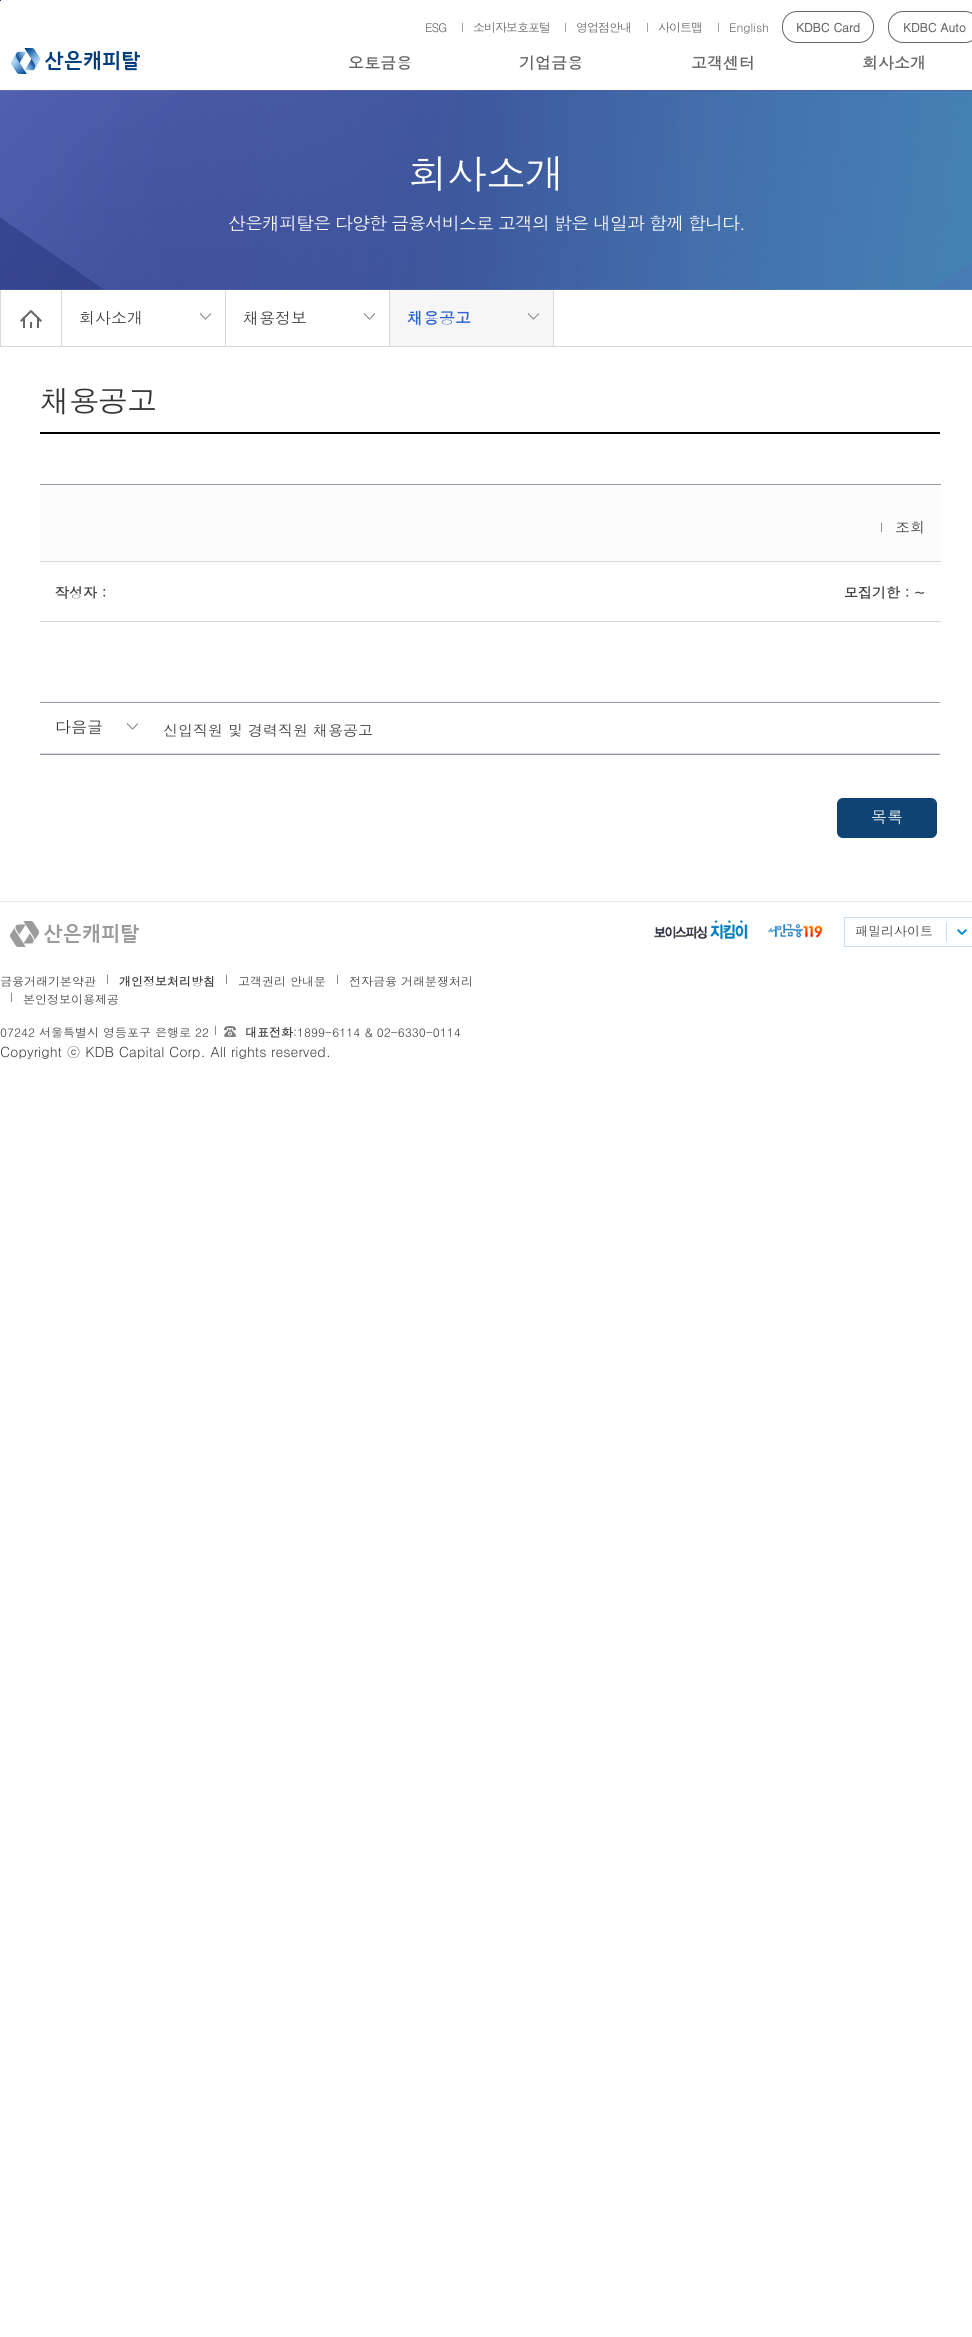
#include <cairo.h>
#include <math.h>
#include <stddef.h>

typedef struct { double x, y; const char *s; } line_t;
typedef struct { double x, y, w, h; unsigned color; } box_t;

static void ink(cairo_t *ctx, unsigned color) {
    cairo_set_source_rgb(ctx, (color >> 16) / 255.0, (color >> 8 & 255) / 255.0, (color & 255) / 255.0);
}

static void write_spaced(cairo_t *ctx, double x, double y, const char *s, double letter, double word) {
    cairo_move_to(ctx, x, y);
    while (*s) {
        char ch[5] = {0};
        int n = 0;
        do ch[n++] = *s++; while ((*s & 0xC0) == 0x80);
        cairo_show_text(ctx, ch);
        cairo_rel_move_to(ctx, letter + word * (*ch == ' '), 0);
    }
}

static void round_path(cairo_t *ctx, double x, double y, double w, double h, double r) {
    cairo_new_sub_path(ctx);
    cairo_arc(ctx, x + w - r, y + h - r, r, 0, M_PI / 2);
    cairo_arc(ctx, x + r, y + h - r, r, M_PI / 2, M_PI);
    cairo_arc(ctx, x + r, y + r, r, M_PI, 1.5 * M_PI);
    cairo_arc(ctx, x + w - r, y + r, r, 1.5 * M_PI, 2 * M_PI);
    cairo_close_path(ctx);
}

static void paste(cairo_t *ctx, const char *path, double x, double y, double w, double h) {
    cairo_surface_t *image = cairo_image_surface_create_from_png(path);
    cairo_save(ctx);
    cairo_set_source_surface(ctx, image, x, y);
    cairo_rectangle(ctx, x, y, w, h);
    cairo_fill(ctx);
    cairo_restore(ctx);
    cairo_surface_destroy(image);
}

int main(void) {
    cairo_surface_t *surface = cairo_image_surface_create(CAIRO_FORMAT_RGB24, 972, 2337);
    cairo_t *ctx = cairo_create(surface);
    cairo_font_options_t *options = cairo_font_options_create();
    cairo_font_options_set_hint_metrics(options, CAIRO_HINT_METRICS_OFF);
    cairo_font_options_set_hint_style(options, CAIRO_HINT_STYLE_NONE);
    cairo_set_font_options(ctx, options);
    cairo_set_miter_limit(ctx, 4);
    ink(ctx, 0xFFFFFF);
    cairo_paint(ctx);
    ink(ctx, 0x00357E);
    cairo_rectangle(ctx, 0, 0, 1, 1);
    cairo_fill(ctx);
    cairo_select_font_face(ctx, "Dotum", CAIRO_FONT_SLANT_NORMAL, CAIRO_FONT_WEIGHT_NORMAL);
    cairo_set_font_size(ctx, 12);
    ink(ctx, 0x666666);
    write_spaced(ctx, 425, 32, "ESG", -1, 0);
    cairo_set_font_size(ctx, 10);
    write_spaced(ctx, 460, 31, "|", -1, 0);
    cairo_set_font_size(ctx, 12);
    write_spaced(ctx, 473, 32, "소비자보호포털", -1, 0);
    cairo_set_font_size(ctx, 10);
    write_spaced(ctx, 563, 31, "|", -1, 0);
    cairo_set_font_size(ctx, 12);
    write_spaced(ctx, 576, 32, "영업점안내", -1, 0);
    cairo_set_font_size(ctx, 10);
    write_spaced(ctx, 645, 31, "|", -1, 0);
    cairo_set_font_size(ctx, 12);
    write_spaced(ctx, 658, 32, "사이트맵", -1, 0);
    cairo_set_font_size(ctx, 10);
    write_spaced(ctx, 716, 31, "|", -1, 0);
    cairo_set_font_size(ctx, 12);
    cairo_move_to(ctx, 729, 32);
    cairo_show_text(ctx, "English");
    round_path(ctx, 782.5, 11.5, 91, 31, 14.5);
    cairo_set_line_width(ctx, 1);
    cairo_stroke(ctx);
    cairo_select_font_face(ctx, "Dotum", CAIRO_FONT_SLANT_NORMAL, CAIRO_FONT_WEIGHT_BOLD);
    cairo_move_to(ctx, 796, 32);
    cairo_show_text(ctx, "KDBC Card");
    round_path(ctx, 888.5, 11.5, 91, 31, 14.5);
    cairo_stroke(ctx);
    cairo_move_to(ctx, 903, 32);
    cairo_show_text(ctx, "KDBC Auto");
    paste(ctx, "media/1.png", 11, 48, 129, 26);
    cairo_set_font_size(ctx, 16);
    {
        static const line_t items[] = {
            {348, 69, "오토금융"},
            {519, 69, "기업금융"},
            {691, 69, "고객센터"},
            {862, 69, "회사소개"},
        };
        for (size_t i = 0; i < sizeof items / sizeof *items; i++) {
            cairo_move_to(ctx, items[i].x, items[i].y);
            cairo_show_text(ctx, items[i].s);
        }
    }
    paste(ctx, "media/2.png", 0, 90, 972, 200);
    cairo_select_font_face(ctx, "Dotum", CAIRO_FONT_SLANT_NORMAL, CAIRO_FONT_WEIGHT_NORMAL);
    cairo_set_font_size(ctx, 40);
    ink(ctx, 0xFFFFFF);
    write_spaced(ctx, 408, 189, "회사소개", -1, 0);
    cairo_set_font_size(ctx, 18);
    write_spaced(ctx, 228, 230, "산은캐피탈은 다양한 금융서비스로 고객의 밝은 내일과 함께 합니다.", -1, 0);
    ink(ctx, 0xD9D9D9);
    cairo_rectangle(ctx, 0, 346, 972, 1);
    cairo_fill(ctx);
    paste(ctx, "media/3.png", 20, 310, 22, 18);
    cairo_rectangle(ctx, 61, 290, 1, 56);
    cairo_fill(ctx);
    cairo_rectangle(ctx, 0, 290, 1, 56);
    cairo_fill(ctx);
    paste(ctx, "media/4.png", 200, 313, 11, 7);
    cairo_rectangle(ctx, 225, 290, 1, 57);
    cairo_fill(ctx);
    cairo_set_font_size(ctx, 16);
    ink(ctx, 0x414141);
    cairo_move_to(ctx, 79, 324);
    cairo_show_text(ctx, "회사소개");
    paste(ctx, "media/4.png", 364, 313, 11, 7);
    ink(ctx, 0xD9D9D9);
    cairo_rectangle(ctx, 389, 290, 1, 57);
    cairo_fill(ctx);
    ink(ctx, 0x414141);
    cairo_move_to(ctx, 243, 324);
    cairo_show_text(ctx, "채용정보");
    ink(ctx, 0xF6F6F6);
    cairo_rectangle(ctx, 390, 290, 163, 56);
    cairo_fill(ctx);
    paste(ctx, "media/5.png", 528, 313, 11, 7);
    ink(ctx, 0xD9D9D9);
    cairo_rectangle(ctx, 553, 290, 1, 57);
    cairo_fill(ctx);
    cairo_select_font_face(ctx, "Dotum", CAIRO_FONT_SLANT_NORMAL, CAIRO_FONT_WEIGHT_BOLD);
    ink(ctx, 0x2B63D0);
    cairo_move_to(ctx, 407, 324);
    cairo_show_text(ctx, "채용공고");
    ink(ctx, 0xE8E8E8);
    cairo_rectangle(ctx, 0, 901, 972, 1);
    cairo_fill(ctx);
    ink(ctx, 0x000000);
    cairo_rectangle(ctx, 40, 432, 900, 2);
    cairo_fill(ctx);
    cairo_select_font_face(ctx, "Dotum", CAIRO_FONT_SLANT_NORMAL, CAIRO_FONT_WEIGHT_NORMAL);
    cairo_set_font_size(ctx, 30);
    ink(ctx, 0x333333);
    write_spaced(ctx, 40, 412, "채용공고", -1, 0);
    {
        static const box_t items[] = {
            {40, 485, 900, 76, 0xFCFCFC},
            {40, 484, 901, 1, 0x9599A6},
            {40, 561, 901, 1, 0xD7D9DD},
        };
        for (size_t i = 0; i < sizeof items / sizeof *items; i++) {
            ink(ctx, items[i].color);
            cairo_rectangle(ctx, items[i].x, items[i].y, items[i].w, items[i].h);
            cairo_fill(ctx);
        }
    }
    cairo_set_font_size(ctx, 10);
    ink(ctx, 0x414141);
    cairo_move_to(ctx, 879, 531);
    cairo_show_text(ctx, "|");
    cairo_set_font_size(ctx, 15);
    cairo_move_to(ctx, 895, 533);
    cairo_show_text(ctx, "조회");
    cairo_select_font_face(ctx, "Dotum", CAIRO_FONT_SLANT_NORMAL, CAIRO_FONT_WEIGHT_BOLD);
    cairo_set_font_size(ctx, 14);
    cairo_move_to(ctx, 55, 598);
    cairo_show_text(ctx, "작성자 :");
    ink(ctx, 0xD7D9DD);
    cairo_rectangle(ctx, 40, 621, 901, 1);
    cairo_fill(ctx);
    ink(ctx, 0x414141);
    cairo_move_to(ctx, 844, 598);
    cairo_show_text(ctx, "모집기한 : ~");
    {
        static const box_t items[] = {
            {40, 702, 900, 1, 0x9599A6},
            {40, 754, 900, 1, 0x9599A6},
            {40, 753, 900, 1, 0xD7D9DD},
        };
        for (size_t i = 0; i < sizeof items / sizeof *items; i++) {
            ink(ctx, items[i].color);
            cairo_rectangle(ctx, items[i].x, items[i].y, items[i].w, items[i].h);
            cairo_fill(ctx);
        }
    }
    paste(ctx, "media/4.png", 127, 723, 11, 7);
    cairo_select_font_face(ctx, "Dotum", CAIRO_FONT_SLANT_NORMAL, CAIRO_FONT_WEIGHT_NORMAL);
    cairo_set_font_size(ctx, 16);
    ink(ctx, 0x333333);
    cairo_move_to(ctx, 55, 733);
    cairo_show_text(ctx, "다음글");
    cairo_set_font_size(ctx, 15);
    ink(ctx, 0x414141);
    cairo_move_to(ctx, 163, 736);
    cairo_show_text(ctx, "신입직원 및 경력직원 채용공고");
    ink(ctx, 0x0F4373);
    round_path(ctx, 837.5, 798.5, 99, 39, 5.5);
    cairo_fill_preserve(ctx);
    cairo_stroke(ctx);
    cairo_set_font_size(ctx, 16);
    ink(ctx, 0xFFFFFF);
    cairo_move_to(ctx, 871, 823);
    cairo_show_text(ctx, "목록");
    paste(ctx, "media/6.png", 654, 920, 94, 20);
    paste(ctx, "media/7.png", 768, 923, 55, 15);
    cairo_rectangle(ctx, 844.5, 917.5, 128, 29);
    ink(ctx, 0xCCDDEE);
    cairo_stroke(ctx);
    cairo_set_font_size(ctx, 13);
    ink(ctx, 0x414141);
    cairo_move_to(ctx, 855, 936);
    cairo_show_text(ctx, "패밀리사이트");
    paste(ctx, "media/8.png", 957, 929, 10, 6);
    ink(ctx, 0xCCDDEE);
    cairo_rectangle(ctx, 946, 922, 1, 20);
    cairo_fill(ctx);
    paste(ctx, "media/9.png", 10, 921, 129, 26);
    cairo_set_font_size(ctx, 12);
    ink(ctx, 0x414141);
    cairo_move_to(ctx, 0, 986);
    cairo_show_text(ctx, "금융거래기본약관");
    cairo_set_font_size(ctx, 10);
    cairo_move_to(ctx, 105, 983);
    cairo_show_text(ctx, "|");
    cairo_select_font_face(ctx, "Dotum", CAIRO_FONT_SLANT_NORMAL, CAIRO_FONT_WEIGHT_BOLD);
    cairo_set_font_size(ctx, 12);
    cairo_move_to(ctx, 119, 986);
    cairo_show_text(ctx, "개인정보처리방침");
    cairo_select_font_face(ctx, "Dotum", CAIRO_FONT_SLANT_NORMAL, CAIRO_FONT_WEIGHT_NORMAL);
    cairo_set_font_size(ctx, 10);
    cairo_move_to(ctx, 224, 983);
    cairo_show_text(ctx, "|");
    cairo_set_font_size(ctx, 12);
    cairo_move_to(ctx, 238, 986);
    cairo_show_text(ctx, "고객권리 안내문");
    cairo_set_font_size(ctx, 10);
    cairo_move_to(ctx, 335, 983);
    cairo_show_text(ctx, "|");
    cairo_set_font_size(ctx, 12);
    cairo_move_to(ctx, 349, 986);
    cairo_show_text(ctx, "전자금융 거래분쟁처리");
    cairo_set_font_size(ctx, 10);
    cairo_move_to(ctx, 9, 1001);
    cairo_show_text(ctx, "|");
    cairo_set_font_size(ctx, 12);
    cairo_move_to(ctx, 23, 1004);
    cairo_show_text(ctx, "본인정보이용제공");
    cairo_move_to(ctx, 0, 1037);
    cairo_show_text(ctx, "07242 서울특별시 영등포구 은행로 22");
    paste(ctx, "media/10.png", 224, 1026, 12, 11);
    cairo_set_font_size(ctx, 10);
    cairo_move_to(ctx, 213, 1034);
    cairo_show_text(ctx, "|");
    cairo_select_font_face(ctx, "Dotum", CAIRO_FONT_SLANT_NORMAL, CAIRO_FONT_WEIGHT_BOLD);
    cairo_set_font_size(ctx, 12);
    cairo_move_to(ctx, 245, 1037);
    cairo_show_text(ctx, "대표전화");
    cairo_select_font_face(ctx, "Dotum", CAIRO_FONT_SLANT_NORMAL, CAIRO_FONT_WEIGHT_NORMAL);
    cairo_move_to(ctx, 293, 1037);
    cairo_show_text(ctx, ":1899-6114 & 02-6330-0114");
    cairo_set_font_size(ctx, 14);
    cairo_move_to(ctx, 0, 1057);
    cairo_show_text(ctx, "Copyright ⓒ KDB Capital Corp. All rights reserved.");
    cairo_surface_write_to_png(surface, "image.png");
    cairo_font_options_destroy(options);
    cairo_destroy(ctx);
    cairo_surface_destroy(surface);
    return 0;
}
